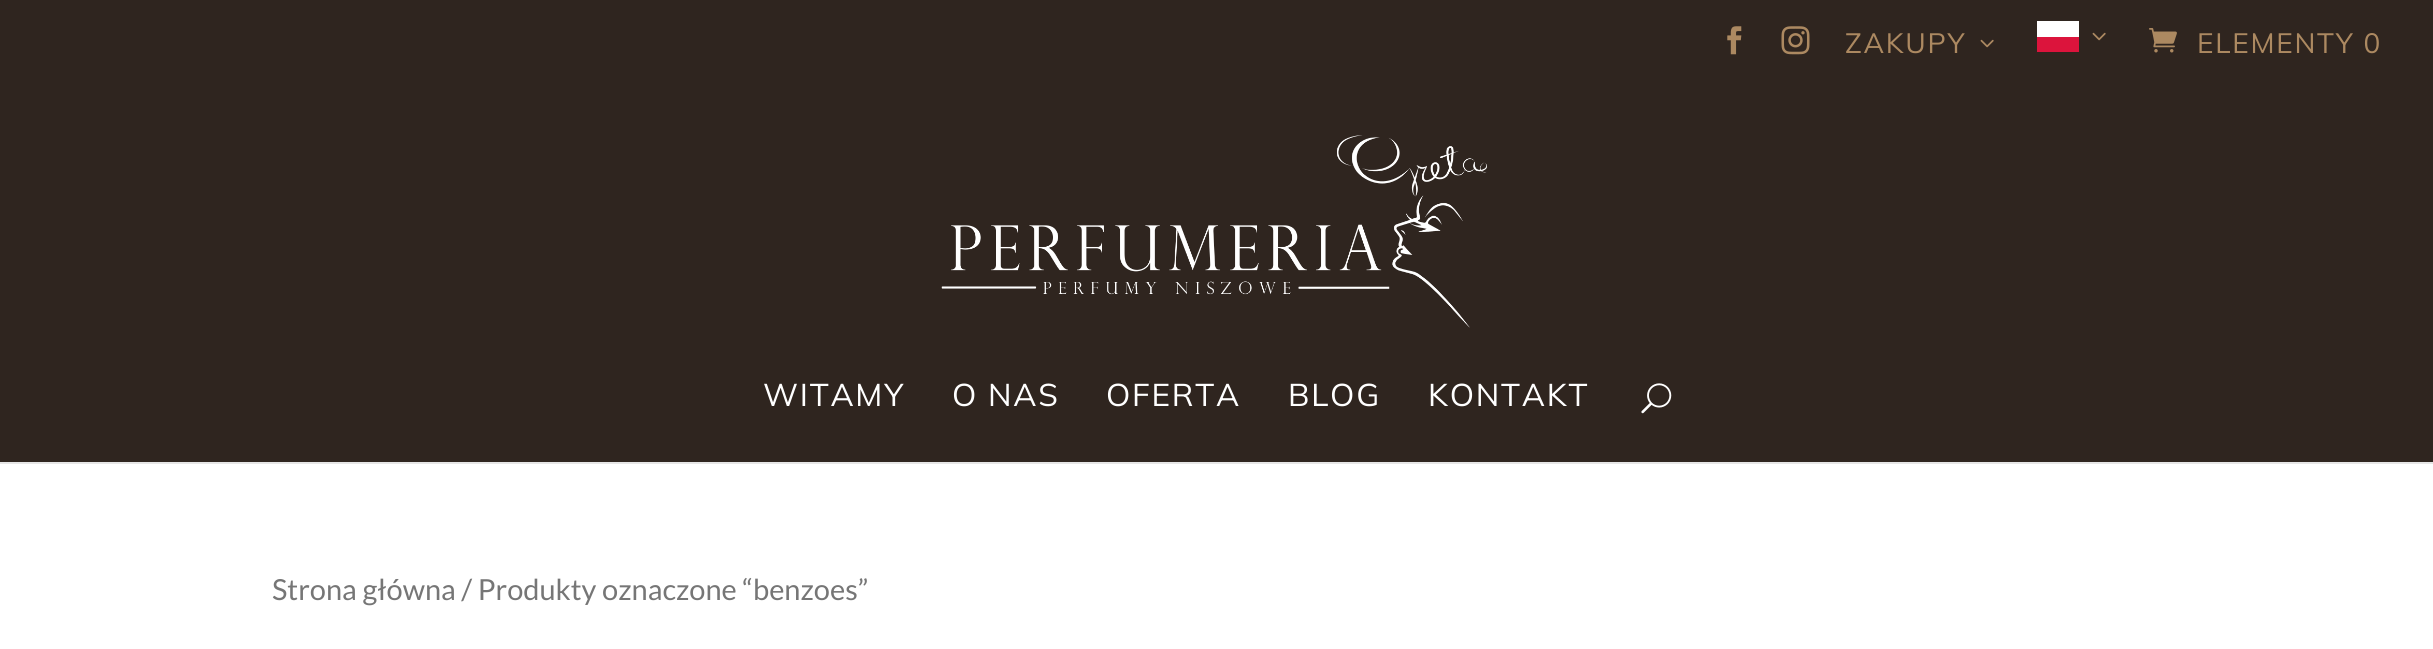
#include <cairo.h>
#include <math.h>
#include <stddef.h>

typedef struct { double x, y; const char *s; } line_t;

static void ink(cairo_t *ctx, unsigned color) {
    cairo_set_source_rgb(ctx, (color >> 16) / 255.0, (color >> 8 & 255) / 255.0, (color & 255) / 255.0);
}

static void write_spaced(cairo_t *ctx, double x, double y, const char *s, double letter, double word) {
    cairo_move_to(ctx, x, y);
    while (*s) {
        char ch[5] = {0};
        int n = 0;
        do ch[n++] = *s++; while ((*s & 0xC0) == 0x80);
        cairo_show_text(ctx, ch);
        cairo_rel_move_to(ctx, letter + word * (*ch == ' '), 0);
    }
}

static void paste(cairo_t *ctx, const char *path, double x, double y, double w, double h) {
    cairo_surface_t *image = cairo_image_surface_create_from_png(path);
    cairo_save(ctx);
    cairo_set_source_surface(ctx, image, x, y);
    cairo_rectangle(ctx, x, y, w, h);
    cairo_fill(ctx);
    cairo_restore(ctx);
    cairo_surface_destroy(image);
}

int main(void) {
    cairo_surface_t *surface = cairo_image_surface_create(CAIRO_FORMAT_RGB24, 2433, 649);
    cairo_t *ctx = cairo_create(surface);
    cairo_font_options_t *options = cairo_font_options_create();
    cairo_font_options_set_hint_metrics(options, CAIRO_HINT_METRICS_OFF);
    cairo_font_options_set_hint_style(options, CAIRO_HINT_STYLE_NONE);
    cairo_set_font_options(ctx, options);
    cairo_set_miter_limit(ctx, 4);
    ink(ctx, 0xFFFFFF);
    cairo_paint(ctx);
    ink(ctx, 0x2F251F);
    cairo_rectangle(ctx, 0, 0, 2433, 462);
    cairo_fill(ctx);
    paste(ctx, "media/1.png", 1727, 26, 15, 29);
    paste(ctx, "media/2.png", 1781, 26, 29, 29);
    cairo_select_font_face(ctx, "Mulish ExtraLight", CAIRO_FONT_SLANT_NORMAL, CAIRO_FONT_WEIGHT_NORMAL);
    cairo_set_font_size(ctx, 28);
    ink(ctx, 0xAC8961);
    write_spaced(ctx, 1845, 53, "ZAKUPY", 1.75, 0);
    paste(ctx, "media/3.png", 1980, 39, 14, 9);
    ink(ctx, 0xFFFFFF);
    cairo_rectangle(ctx, 2037, 21, 42, 16);
    cairo_fill(ctx);
    paste(ctx, "media/3.png", 2092, 32, 14, 9);
    ink(ctx, 0xDC143C);
    cairo_rectangle(ctx, 2037, 37, 42, 15);
    cairo_fill(ctx);
    paste(ctx, "media/4.png", 2149, 28, 28, 25);
    ink(ctx, 0xAC8961);
    write_spaced(ctx, 2197, 53, "ELEMENTY 0", 1.75, 0);
    ink(ctx, 0xE6E6E6);
    cairo_rectangle(ctx, 0, 462, 2433, 2);
    cairo_fill(ctx);
    paste(ctx, "media/5.png", 941, 135, 546, 193);
    cairo_set_font_size(ctx, 31.5);
    ink(ctx, 0xFFFFFF);
    {
        static const line_t items[] = {
            {763, 406, "WITAMY"},
            {952, 406, "O NAS"},
            {1106, 406, "OFERTA"},
            {1288, 406, "BLOG"},
            {1428, 406, "KONTAKT"},
        };
        for (size_t i = 0; i < sizeof items / sizeof *items; i++) {
            write_spaced(ctx, items[i].x, items[i].y, items[i].s, 1.75, 0);
        }
    }
    paste(ctx, "media/6.png", 1641, 383, 31, 31);
    cairo_select_font_face(ctx, "Lato", CAIRO_FONT_SLANT_NORMAL, CAIRO_FONT_WEIGHT_NORMAL);
    cairo_set_font_size(ctx, 29);
    ink(ctx, 0x767676);
    cairo_move_to(ctx, 272, 600);
    cairo_show_text(ctx, "Strona główna / Produkty oznaczone “benzoes”");
    cairo_surface_write_to_png(surface, "image.png");
    cairo_font_options_destroy(options);
    cairo_destroy(ctx);
    cairo_surface_destroy(surface);
    return 0;
}
